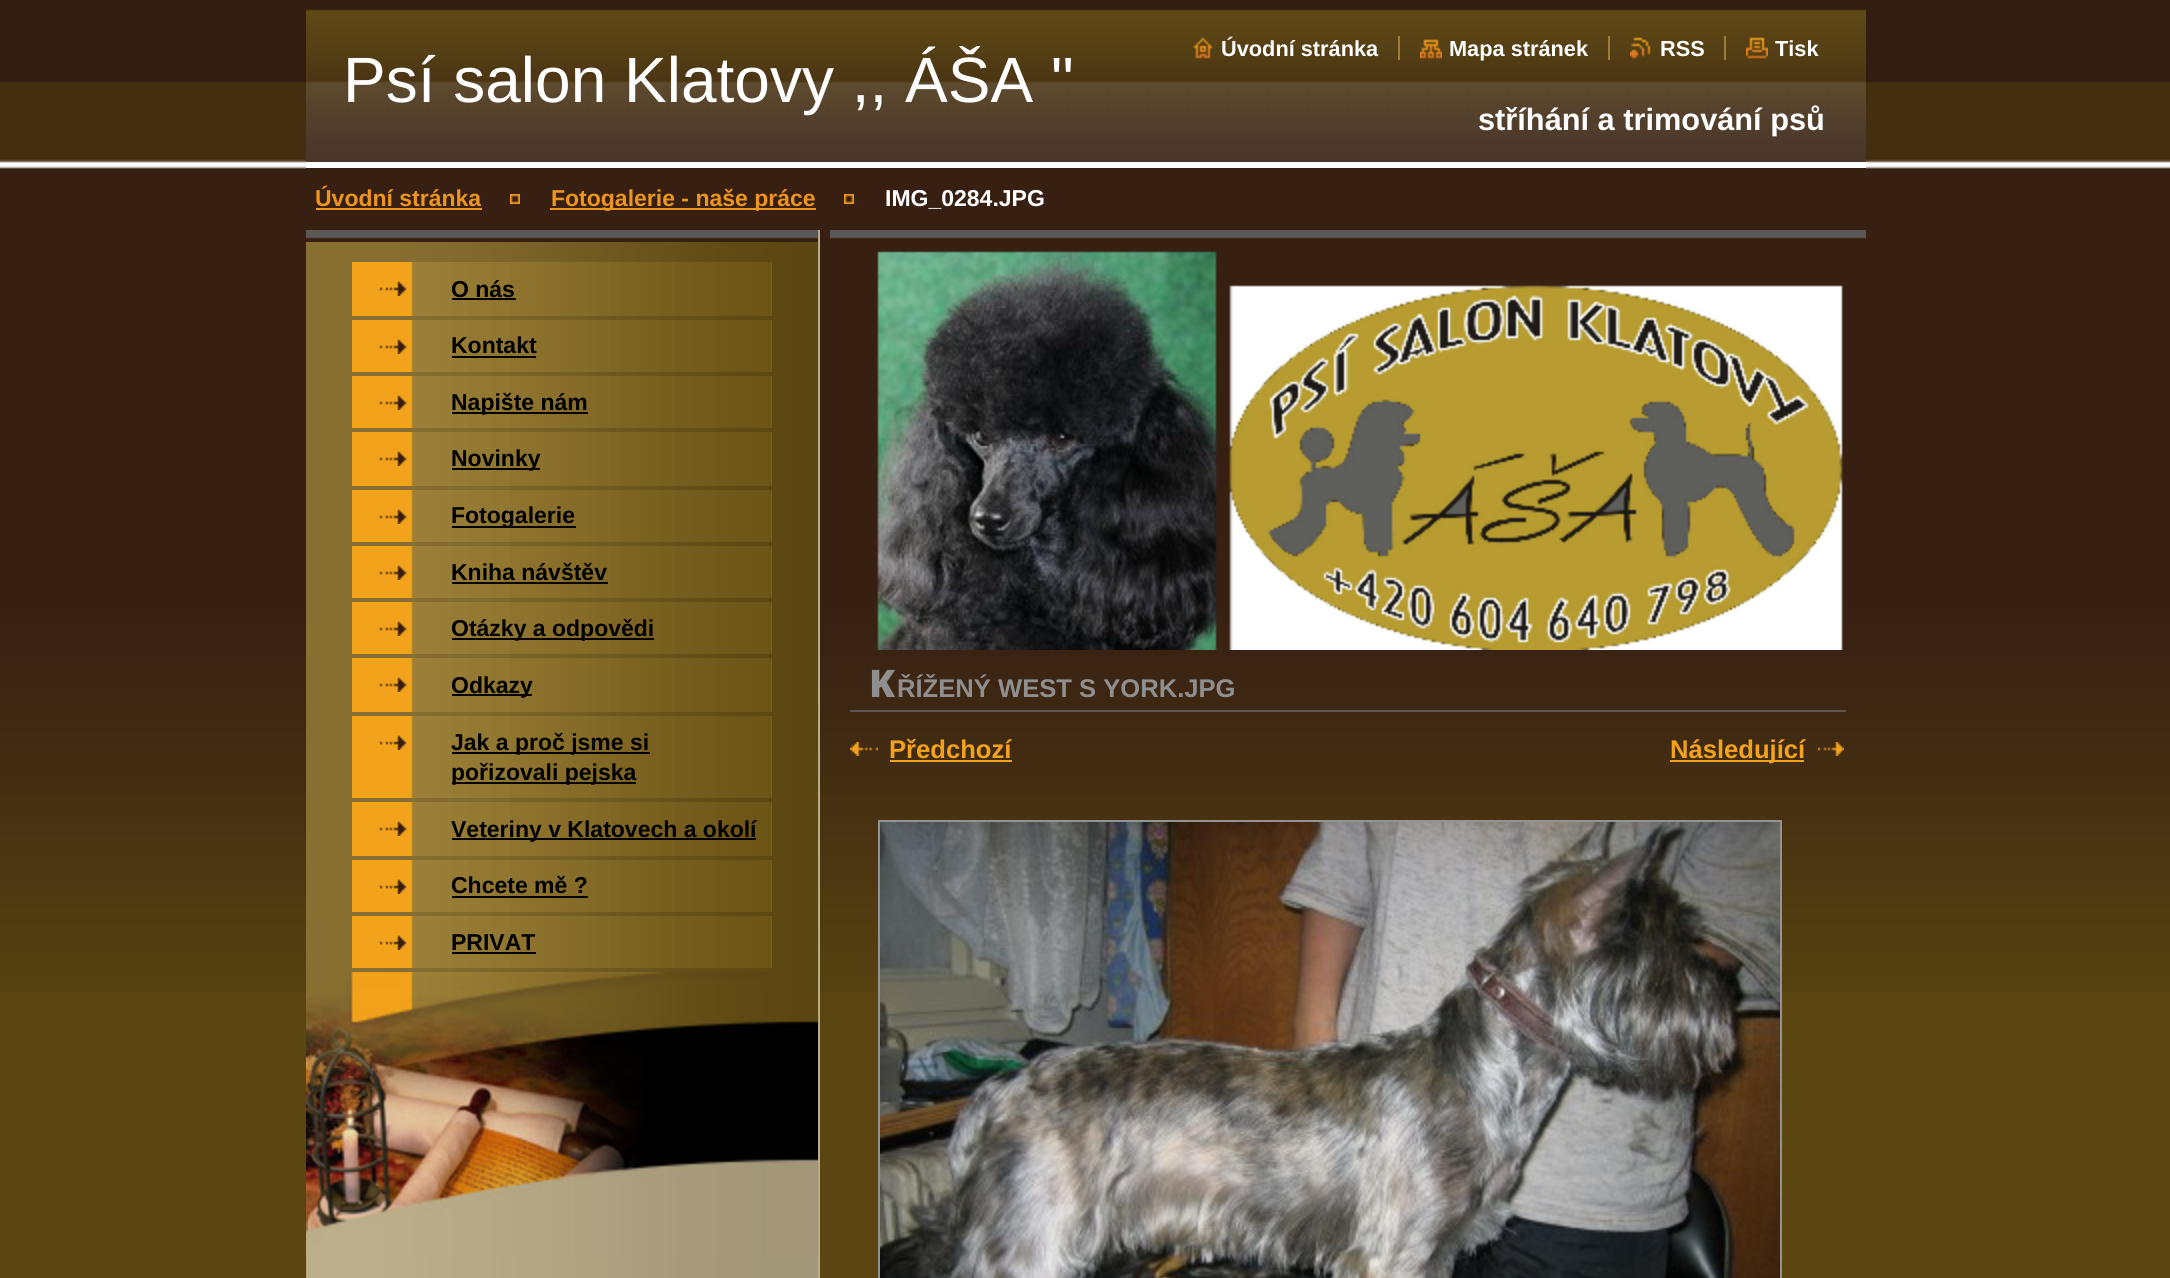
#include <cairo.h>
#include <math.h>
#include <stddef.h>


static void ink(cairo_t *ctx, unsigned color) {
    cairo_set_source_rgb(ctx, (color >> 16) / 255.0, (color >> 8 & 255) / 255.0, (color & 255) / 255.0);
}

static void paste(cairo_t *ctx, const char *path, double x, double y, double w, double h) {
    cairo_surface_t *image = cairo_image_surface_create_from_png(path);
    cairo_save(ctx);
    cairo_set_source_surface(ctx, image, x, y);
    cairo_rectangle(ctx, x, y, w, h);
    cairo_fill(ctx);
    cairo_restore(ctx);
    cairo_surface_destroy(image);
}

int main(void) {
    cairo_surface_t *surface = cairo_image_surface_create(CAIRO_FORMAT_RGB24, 2170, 1278);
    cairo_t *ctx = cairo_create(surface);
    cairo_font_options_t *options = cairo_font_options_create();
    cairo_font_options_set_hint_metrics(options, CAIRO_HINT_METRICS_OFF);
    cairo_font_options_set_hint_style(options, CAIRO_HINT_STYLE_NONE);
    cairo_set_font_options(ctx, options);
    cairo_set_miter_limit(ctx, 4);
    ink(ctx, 0x5B4611);
    cairo_paint(ctx);
    paste(ctx, "media/1.png", 0, 0, 2170, 992);
    paste(ctx, "media/2.png", 306, 230, 514, 1048);
    paste(ctx, "media/3.png", 306, 0, 1560, 162);
    ink(ctx, 0xFFFFFF);
    cairo_rectangle(ctx, 306, 162, 1560, 6);
    cairo_fill(ctx);
    cairo_select_font_face(ctx, "Liberation Sans", CAIRO_FONT_SLANT_NORMAL, CAIRO_FONT_WEIGHT_NORMAL);
    cairo_set_font_size(ctx, 64);
    cairo_move_to(ctx, 343, 102);
    cairo_show_text(ctx, "Psí salon Klatovy ,, ÁŠA \"");
    paste(ctx, "media/4.png", 1193, 37, 20, 22);
    cairo_select_font_face(ctx, "Liberation Sans", CAIRO_FONT_SLANT_NORMAL, CAIRO_FONT_WEIGHT_BOLD);
    cairo_set_font_size(ctx, 21.75);
    cairo_move_to(ctx, 1221, 56);
    cairo_show_text(ctx, "Úvodní stránka");
    paste(ctx, "media/5.png", 1420, 39, 22, 20);
    cairo_move_to(ctx, 1449, 56);
    cairo_show_text(ctx, "Mapa stránek");
    ink(ctx, 0x9A7E37);
    cairo_rectangle(ctx, 1398, 36, 2, 24);
    cairo_fill(ctx);
    paste(ctx, "media/6.png", 1630, 37, 21, 22);
    ink(ctx, 0xFFFFFF);
    cairo_move_to(ctx, 1660, 56);
    cairo_show_text(ctx, "RSS");
    ink(ctx, 0x9A7E37);
    cairo_rectangle(ctx, 1608, 36, 2, 24);
    cairo_fill(ctx);
    paste(ctx, "media/7.png", 1746, 37, 22, 22);
    ink(ctx, 0xFFFFFF);
    cairo_move_to(ctx, 1775, 56);
    cairo_show_text(ctx, "Tisk");
    ink(ctx, 0x9A7E37);
    cairo_rectangle(ctx, 1724, 36, 2, 24);
    cairo_fill(ctx);
    cairo_set_font_size(ctx, 30.75);
    ink(ctx, 0xFFFFFF);
    cairo_move_to(ctx, 1478, 130);
    cairo_show_text(ctx, "stříhání a trimování psů");
    ink(ctx, 0x372012);
    cairo_rectangle(ctx, 306, 168, 1560, 2);
    cairo_fill(ctx);
    cairo_set_font_size(ctx, 23);
    ink(ctx, 0xED951C);
    cairo_move_to(ctx, 315, 206);
    cairo_show_text(ctx, "Úvodní stránka");
    cairo_rectangle(ctx, 316, 208, 166, 2);
    cairo_fill(ctx);
    paste(ctx, "media/8.png", 510, 194, 10, 10);
    cairo_rectangle(ctx, 550, 208, 266, 2);
    cairo_fill(ctx);
    cairo_move_to(ctx, 551, 206);
    cairo_show_text(ctx, "Fotogalerie - naše práce");
    paste(ctx, "media/8.png", 844, 194, 10, 10);
    ink(ctx, 0xFFFFFF);
    cairo_move_to(ctx, 885, 206);
    cairo_show_text(ctx, "IMG_0284.JPG");
    paste(ctx, "media/9.png", 306, 230, 512, 12);
    paste(ctx, "media/10.png", 306, 242, 512, 730);
    paste(ctx, "media/11.png", 352, 262, 420, 54);
    paste(ctx, "media/12.png", 379, 281, 28, 15);
    ink(ctx, 0x000000);
    cairo_move_to(ctx, 451, 297);
    cairo_show_text(ctx, "O nás");
    cairo_rectangle(ctx, 452, 298, 64, 2);
    cairo_fill(ctx);
    paste(ctx, "media/13.png", 352, 320, 420, 52);
    paste(ctx, "media/12.png", 379, 339, 28, 15);
    cairo_move_to(ctx, 451, 353);
    cairo_show_text(ctx, "Kontakt");
    cairo_rectangle(ctx, 452, 356, 84, 2);
    cairo_fill(ctx);
    paste(ctx, "media/13.png", 352, 376, 420, 52);
    paste(ctx, "media/12.png", 379, 395, 28, 15);
    cairo_rectangle(ctx, 452, 412, 136, 2);
    cairo_fill(ctx);
    cairo_move_to(ctx, 451, 410);
    cairo_show_text(ctx, "Napište nám");
    paste(ctx, "media/11.png", 352, 432, 420, 54);
    paste(ctx, "media/12.png", 379, 451, 28, 15);
    cairo_rectangle(ctx, 452, 468, 88, 2);
    cairo_fill(ctx);
    cairo_move_to(ctx, 451, 466);
    cairo_show_text(ctx, "Novinky");
    paste(ctx, "media/13.png", 352, 490, 420, 52);
    paste(ctx, "media/12.png", 379, 509, 28, 15);
    cairo_rectangle(ctx, 452, 526, 124, 2);
    cairo_fill(ctx);
    cairo_move_to(ctx, 451, 523);
    cairo_show_text(ctx, "Fotogalerie");
    paste(ctx, "media/13.png", 352, 546, 420, 52);
    paste(ctx, "media/12.png", 379, 565, 28, 15);
    cairo_move_to(ctx, 451, 580);
    cairo_show_text(ctx, "Kniha návštěv");
    cairo_rectangle(ctx, 452, 582, 156, 2);
    cairo_fill(ctx);
    paste(ctx, "media/13.png", 352, 602, 420, 52);
    paste(ctx, "media/12.png", 379, 621, 28, 15);
    cairo_rectangle(ctx, 452, 638, 202, 2);
    cairo_fill(ctx);
    cairo_move_to(ctx, 451, 636);
    cairo_show_text(ctx, "Otázky a odpovědi");
    paste(ctx, "media/11.png", 352, 658, 420, 54);
    paste(ctx, "media/12.png", 379, 677, 28, 15);
    cairo_rectangle(ctx, 452, 694, 80, 2);
    cairo_fill(ctx);
    cairo_move_to(ctx, 451, 693);
    cairo_show_text(ctx, "Odkazy");
    paste(ctx, "media/14.png", 352, 716, 420, 82);
    paste(ctx, "media/12.png", 379, 735, 28, 15);
    cairo_rectangle(ctx, 452, 752, 198, 2);
    cairo_fill(ctx);
    cairo_move_to(ctx, 451, 750);
    cairo_show_text(ctx, "Jak a proč jsme si");
    cairo_rectangle(ctx, 452, 782, 184, 2);
    cairo_fill(ctx);
    cairo_move_to(ctx, 451, 780);
    cairo_show_text(ctx, "pořizovali pejska");
    paste(ctx, "media/11.png", 352, 802, 420, 54);
    paste(ctx, "media/12.png", 379, 821, 28, 15);
    cairo_rectangle(ctx, 452, 838, 304, 2);
    cairo_fill(ctx);
    cairo_move_to(ctx, 451, 837);
    cairo_show_text(ctx, "Veteriny v Klatovech a okolí");
    paste(ctx, "media/13.png", 352, 860, 420, 52);
    paste(ctx, "media/12.png", 379, 879, 28, 15);
    cairo_move_to(ctx, 451, 893);
    cairo_show_text(ctx, "Chcete mě ?");
    cairo_rectangle(ctx, 452, 896, 136, 2);
    cairo_fill(ctx);
    paste(ctx, "media/13.png", 352, 916, 420, 52);
    paste(ctx, "media/12.png", 379, 935, 28, 15);
    cairo_move_to(ctx, 451, 950);
    cairo_show_text(ctx, "PRIVAT");
    cairo_rectangle(ctx, 452, 952, 84, 2);
    cairo_fill(ctx);
    paste(ctx, "media/15.png", 306, 972, 512, 284);
    paste(ctx, "media/16.png", 830, 230, 1036, 9);
    paste(ctx, "media/17.png", 877, 251, 966, 399);
    ink(ctx, 0x5A5859);
    cairo_rectangle(ctx, 850, 710, 996, 2);
    cairo_fill(ctx);
    cairo_select_font_face(ctx, "Noto Sans Black", CAIRO_FONT_SLANT_NORMAL, CAIRO_FONT_WEIGHT_NORMAL);
    cairo_set_font_size(ctx, 38);
    ink(ctx, 0x8F8F8F);
    cairo_move_to(ctx, 869, 697);
    cairo_show_text(ctx, "K");
    cairo_select_font_face(ctx, "Liberation Sans", CAIRO_FONT_SLANT_NORMAL, CAIRO_FONT_WEIGHT_BOLD);
    cairo_set_font_size(ctx, 25.6);
    cairo_move_to(ctx, 897, 697);
    cairo_show_text(ctx, "ŘÍŽENÝ WEST S YORK.JPG");
    paste(ctx, "media/18.png", 850, 742, 28, 14);
    ink(ctx, 0xF3A21C);
    cairo_move_to(ctx, 889, 758);
    cairo_show_text(ctx, "Předchozí");
    cairo_rectangle(ctx, 890, 760, 122, 2);
    cairo_fill(ctx);
    paste(ctx, "media/19.png", 1818, 742, 26, 14);
    cairo_rectangle(ctx, 1670, 760, 134, 2);
    cairo_fill(ctx);
    cairo_move_to(ctx, 1670, 758);
    cairo_show_text(ctx, "Následující");
    cairo_rectangle(ctx, 879, 821, 902, 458);
    ink(ctx, 0x939393);
    cairo_stroke(ctx);
    paste(ctx, "media/20.png", 880, 822, 900, 456);
    cairo_surface_write_to_png(surface, "image.png");
    cairo_font_options_destroy(options);
    cairo_destroy(ctx);
    cairo_surface_destroy(surface);
    return 0;
}
